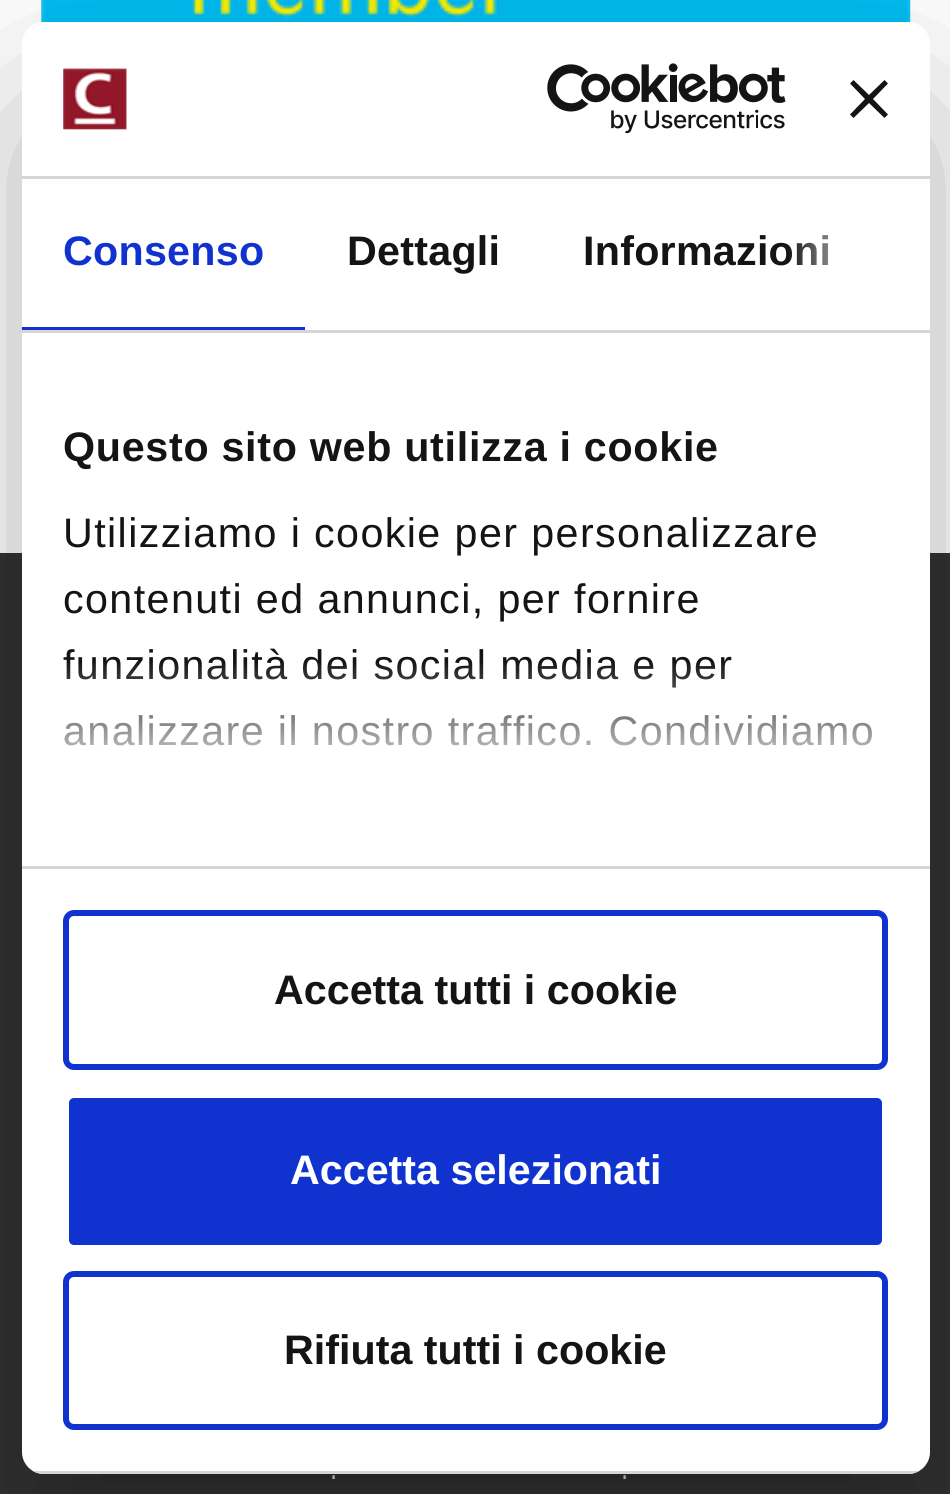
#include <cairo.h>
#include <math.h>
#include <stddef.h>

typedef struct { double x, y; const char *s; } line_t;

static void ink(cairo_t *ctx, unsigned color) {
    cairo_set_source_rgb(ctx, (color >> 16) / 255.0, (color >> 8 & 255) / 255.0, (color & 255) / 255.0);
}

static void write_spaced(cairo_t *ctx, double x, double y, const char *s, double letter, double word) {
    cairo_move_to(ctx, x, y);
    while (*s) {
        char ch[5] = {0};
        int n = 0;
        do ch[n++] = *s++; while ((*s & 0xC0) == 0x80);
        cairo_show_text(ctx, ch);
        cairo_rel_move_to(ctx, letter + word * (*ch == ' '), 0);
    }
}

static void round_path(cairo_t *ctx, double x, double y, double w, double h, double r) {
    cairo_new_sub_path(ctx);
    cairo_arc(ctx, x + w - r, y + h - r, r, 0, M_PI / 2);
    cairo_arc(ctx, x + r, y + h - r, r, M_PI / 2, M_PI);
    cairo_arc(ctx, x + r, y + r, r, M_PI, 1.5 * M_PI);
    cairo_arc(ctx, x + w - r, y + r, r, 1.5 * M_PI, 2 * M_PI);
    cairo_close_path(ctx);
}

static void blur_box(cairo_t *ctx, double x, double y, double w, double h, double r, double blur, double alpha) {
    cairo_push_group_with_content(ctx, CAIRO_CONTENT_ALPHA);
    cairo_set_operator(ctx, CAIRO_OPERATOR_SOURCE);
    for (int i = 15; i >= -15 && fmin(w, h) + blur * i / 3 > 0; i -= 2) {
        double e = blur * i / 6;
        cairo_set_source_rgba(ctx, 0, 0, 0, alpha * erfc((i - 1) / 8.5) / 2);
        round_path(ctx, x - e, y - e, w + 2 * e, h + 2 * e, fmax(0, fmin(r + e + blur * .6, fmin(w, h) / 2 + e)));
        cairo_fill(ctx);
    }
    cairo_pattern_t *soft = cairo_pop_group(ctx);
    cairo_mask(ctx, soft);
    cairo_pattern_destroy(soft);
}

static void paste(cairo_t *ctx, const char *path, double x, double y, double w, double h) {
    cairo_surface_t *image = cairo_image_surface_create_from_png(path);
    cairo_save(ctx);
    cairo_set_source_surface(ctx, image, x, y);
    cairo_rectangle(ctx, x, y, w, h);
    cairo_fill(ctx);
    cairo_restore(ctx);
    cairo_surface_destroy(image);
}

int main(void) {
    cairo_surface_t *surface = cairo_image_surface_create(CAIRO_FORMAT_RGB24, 950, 1494);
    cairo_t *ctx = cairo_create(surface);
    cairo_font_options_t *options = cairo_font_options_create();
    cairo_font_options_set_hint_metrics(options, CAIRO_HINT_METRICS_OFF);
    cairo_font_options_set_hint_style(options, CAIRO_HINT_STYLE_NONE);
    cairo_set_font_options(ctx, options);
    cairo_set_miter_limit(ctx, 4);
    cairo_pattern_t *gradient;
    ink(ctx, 0xFFFFFF);
    cairo_paint(ctx);
    paste(ctx, "media/3.png", 41, 0, 870, 23);
    ink(ctx, 0x333333);
    cairo_rectangle(ctx, 0, 553, 950, 941);
    cairo_fill(ctx);
    ink(ctx, 0x000000);
    blur_box(ctx, 22, 110, 908, 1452, 22, 93.5, 0.3);
    ink(ctx, 0xFFFFFF);
    round_path(ctx, 22, 22, 908, 1452, 22);
    cairo_fill(ctx);
    ink(ctx, 0xD6D6D6);
    cairo_rectangle(ctx, 22, 176, 908, 3);
    cairo_fill(ctx);
    paste(ctx, "media/1.png", 63, 68, 64, 62);
    paste(ctx, "media/2.png", 547, 63, 239, 71);
    ink(ctx, 0x141414);
    cairo_new_path(ctx);
    cairo_move_to(ctx, 888, 83.5);
    cairo_line_to(ctx, 884.5, 80);
    cairo_line_to(ctx, 869, 95);
    cairo_line_to(ctx, 853.5, 80);
    cairo_line_to(ctx, 850, 83.5);
    cairo_line_to(ctx, 865, 99);
    cairo_line_to(ctx, 850, 114.5);
    cairo_line_to(ctx, 853.5, 118);
    cairo_line_to(ctx, 869, 103);
    cairo_line_to(ctx, 884.5, 118);
    cairo_line_to(ctx, 888, 114.5);
    cairo_line_to(ctx, 873, 99);
    cairo_close_path(ctx);
    cairo_fill(ctx);
    ink(ctx, 0xD6D6D6);
    cairo_rectangle(ctx, 22, 330, 908, 3);
    cairo_fill(ctx);
    ink(ctx, 0x1032CF);
    cairo_rectangle(ctx, 22, 327, 283, 3);
    cairo_fill(ctx);
    cairo_select_font_face(ctx, "Liberation Sans", CAIRO_FONT_SLANT_NORMAL, CAIRO_FONT_WEIGHT_BOLD);
    cairo_set_font_size(ctx, 41.25);
    write_spaced(ctx, 63, 265, "Consenso", 0.25, 0);
    ink(ctx, 0x141414);
    write_spaced(ctx, 347, 265, "Dettagli", 0.25, 0);
    write_spaced(ctx, 583, 265, "Informazioni", 0.25, 0);
    gradient = cairo_pattern_create_linear(930, 254, 787, 254);
    cairo_pattern_add_color_stop_rgba(gradient, 0, 1, 1, 1, 1);
    cairo_pattern_add_color_stop_rgba(gradient, 0.5, 1, 1, 1, 0.8);
    cairo_pattern_add_color_stop_rgba(gradient, 1, 1, 1, 1, 0);
    cairo_set_source(ctx, gradient);
    cairo_pattern_destroy(gradient);
    cairo_rectangle(ctx, 789, 235, 40, 30);
    cairo_fill(ctx);
    ink(ctx, 0xD6D6D6);
    cairo_rectangle(ctx, 22, 866, 908, 3);
    cairo_fill(ctx);
    ink(ctx, 0x141414);
    write_spaced(ctx, 63, 461, "Questo sito web utilizza i cookie", 0.7, 0);
    cairo_select_font_face(ctx, "Liberation Sans", CAIRO_FONT_SLANT_NORMAL, CAIRO_FONT_WEIGHT_NORMAL);
    {
        static const line_t items[] = {
            {63, 547, "Utilizziamo i cookie per personalizzare"},
            {63, 613, "contenuti ed annunci, per fornire"},
            {63, 679, "funzionalità dei social media e per"},
            {63, 745, "analizzare il nostro traffico. Condividiamo"},
        };
        for (size_t i = 0; i < sizeof items / sizeof *items; i++) {
            write_spaced(ctx, items[i].x, items[i].y, items[i].s, 1.4, 0);
        }
    }
    gradient = cairo_pattern_create_linear(458, 866, 458, 660);
    cairo_pattern_add_color_stop_rgba(gradient, 0, 1, 1, 1, 1);
    cairo_pattern_add_color_stop_rgba(gradient, 0.5, 1, 1, 1, 0.8);
    cairo_pattern_add_color_stop_rgba(gradient, 1, 1, 1, 1, 0);
    cairo_set_source(ctx, gradient);
    cairo_pattern_destroy(gradient);
    cairo_rectangle(ctx, 65, 663, 807, 83);
    cairo_fill(ctx);
    cairo_save(ctx);
    round_path(ctx, 22, 22, 908, 1452, 22);
    cairo_clip(ctx);
    ink(ctx, 0xD6D6D6);
    cairo_rectangle(ctx, 33, 1471, 886, 3);
    cairo_fill(ctx);
    cairo_restore(ctx);
    round_path(ctx, 66, 913, 819, 154, 8);
    ink(ctx, 0x1032CF);
    cairo_set_line_width(ctx, 6);
    cairo_stroke(ctx);
    cairo_select_font_face(ctx, "Liberation Sans", CAIRO_FONT_SLANT_NORMAL, CAIRO_FONT_WEIGHT_BOLD);
    ink(ctx, 0x141414);
    cairo_move_to(ctx, 274, 1004);
    cairo_show_text(ctx, "Accetta tutti i cookie");
    ink(ctx, 0x1032CF);
    round_path(ctx, 66, 1095, 819, 153, 8);
    cairo_fill_preserve(ctx);
    ink(ctx, 0xFFFFFF);
    cairo_stroke(ctx);
    cairo_move_to(ctx, 290, 1184);
    cairo_show_text(ctx, "Accetta selezionati");
    round_path(ctx, 66, 1274, 819, 153, 8);
    ink(ctx, 0x1032CF);
    cairo_stroke(ctx);
    ink(ctx, 0x141414);
    cairo_move_to(ctx, 284, 1364);
    cairo_show_text(ctx, "Rifiuta tutti i cookie");
    cairo_select_font_face(ctx, "Raleway", CAIRO_FONT_SLANT_NORMAL, CAIRO_FONT_WEIGHT_NORMAL);
    cairo_set_font_size(ctx, 38);
    ink(ctx, 0xADADAD);
    cairo_move_to(ctx, 330, 1479);
    cairo_show_text(ctx, ".");
    cairo_move_to(ctx, 621, 1479);
    cairo_show_text(ctx, ".");
    cairo_surface_write_to_png(surface, "image.png");
    cairo_font_options_destroy(options);
    cairo_destroy(ctx);
    cairo_surface_destroy(surface);
    return 0;
}
